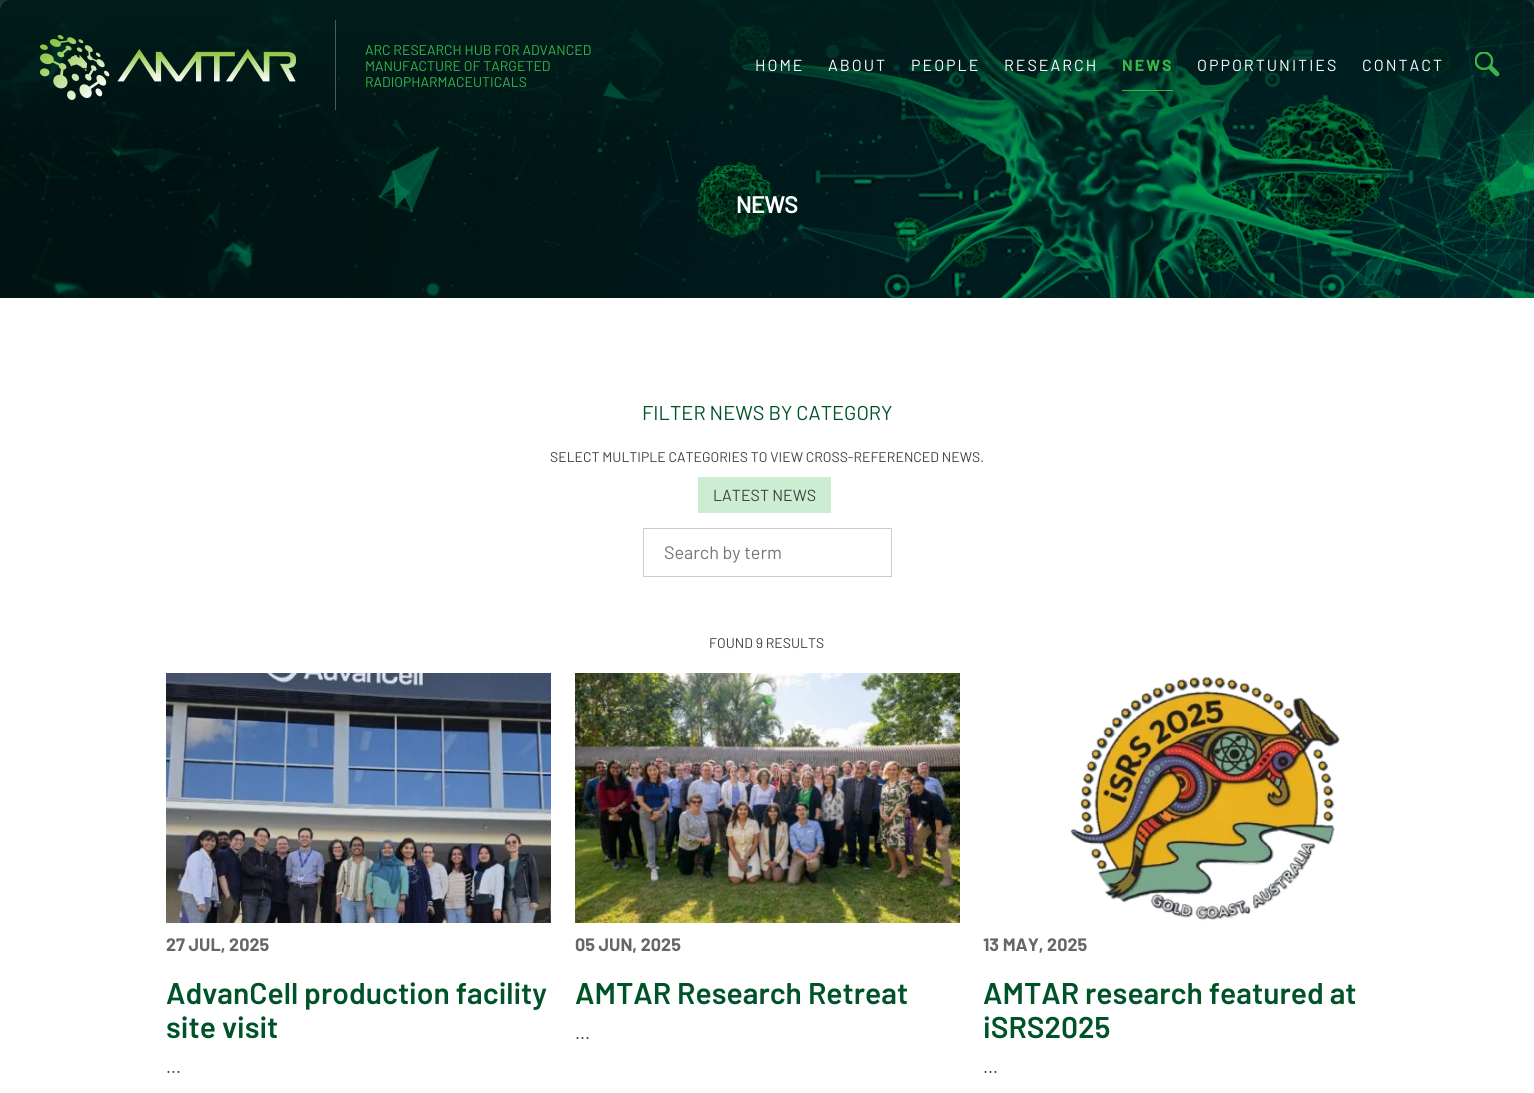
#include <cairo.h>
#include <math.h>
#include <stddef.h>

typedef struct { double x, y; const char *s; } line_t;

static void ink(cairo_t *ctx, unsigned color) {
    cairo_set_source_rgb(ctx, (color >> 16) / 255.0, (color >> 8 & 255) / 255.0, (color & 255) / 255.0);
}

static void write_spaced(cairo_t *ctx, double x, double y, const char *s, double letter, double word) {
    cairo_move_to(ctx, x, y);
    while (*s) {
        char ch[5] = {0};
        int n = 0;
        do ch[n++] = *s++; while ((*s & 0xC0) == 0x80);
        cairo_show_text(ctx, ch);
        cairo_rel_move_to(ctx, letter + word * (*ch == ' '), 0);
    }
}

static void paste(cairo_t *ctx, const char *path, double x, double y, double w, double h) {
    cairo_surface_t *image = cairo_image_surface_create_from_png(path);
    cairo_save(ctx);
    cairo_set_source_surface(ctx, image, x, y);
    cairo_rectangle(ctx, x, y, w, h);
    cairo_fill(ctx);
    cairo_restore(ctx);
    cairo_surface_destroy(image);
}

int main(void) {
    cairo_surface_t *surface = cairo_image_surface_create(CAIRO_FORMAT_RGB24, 1534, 1093);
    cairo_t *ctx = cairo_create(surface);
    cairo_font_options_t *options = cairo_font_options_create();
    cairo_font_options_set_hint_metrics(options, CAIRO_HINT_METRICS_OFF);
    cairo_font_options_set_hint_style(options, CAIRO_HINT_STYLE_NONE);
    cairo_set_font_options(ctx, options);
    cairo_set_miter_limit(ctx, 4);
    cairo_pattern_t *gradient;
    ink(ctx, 0xFFFFFF);
    cairo_paint(ctx);
    paste(ctx, "media/3.png", 0, 0, 1534, 298);
    gradient = cairo_pattern_create_linear(767, 0, 767, 160);
    cairo_pattern_add_color_stop_rgba(gradient, 0, 0, 0.114, 0.106, 0.9);
    cairo_pattern_add_color_stop_rgba(gradient, 1, 0, 0.114, 0.106, 0);
    cairo_set_source(ctx, gradient);
    cairo_pattern_destroy(gradient);
    cairo_rectangle(ctx, 0, 0, 1534, 156);
    cairo_fill(ctx);
    paste(ctx, "media/1.png", 40, 35, 256, 65);
    cairo_set_source_rgba(ctx, 1, 1, 1, 0.3);
    cairo_rectangle(ctx, 335, 20, 1, 90);
    cairo_fill(ctx);
    cairo_select_font_face(ctx, "Barlow", CAIRO_FONT_SLANT_NORMAL, CAIRO_FONT_WEIGHT_NORMAL);
    cairo_set_font_size(ctx, 14);
    ink(ctx, 0x39B54A);
    {
        static const line_t items[] = {
            {365, 55, "ARC RESEARCH HUB FOR ADVANCED"},
            {365, 71, "MANUFACTURE OF TARGETED"},
            {365, 87, "RADIOPHARMACEUTICALS"},
        };
        for (size_t i = 0; i < sizeof items / sizeof *items; i++) {
            cairo_move_to(ctx, items[i].x, items[i].y);
            cairo_show_text(ctx, items[i].s);
        }
    }
    cairo_set_font_size(ctx, 16);
    ink(ctx, 0xFFFFFF);
    {
        static const line_t items[] = {
            {755, 71, "HOME"},
            {828, 71, "ABOUT"},
            {911, 71, "PEOPLE"},
            {1004, 71, "RESEARCH"},
        };
        for (size_t i = 0; i < sizeof items / sizeof *items; i++) {
            write_spaced(ctx, items[i].x, items[i].y, items[i].s, 2, 0);
        }
    }
    ink(ctx, 0x39B54A);
    cairo_rectangle(ctx, 1122, 90, 51, 1);
    cairo_fill(ctx);
    cairo_select_font_face(ctx, "Barlow", CAIRO_FONT_SLANT_NORMAL, CAIRO_FONT_WEIGHT_BOLD);
    write_spaced(ctx, 1122, 71, "NEWS", 2, 0);
    cairo_select_font_face(ctx, "Barlow", CAIRO_FONT_SLANT_NORMAL, CAIRO_FONT_WEIGHT_NORMAL);
    ink(ctx, 0xFFFFFF);
    write_spaced(ctx, 1197, 71, "OPPORTUNITIES", 2, 0);
    write_spaced(ctx, 1362, 71, "CONTACT", 2, 0);
    paste(ctx, "media/2.png", 1475, 52, 25, 25);
    cairo_select_font_face(ctx, "Barlow SemiBold", CAIRO_FONT_SLANT_NORMAL, CAIRO_FONT_WEIGHT_NORMAL);
    cairo_set_font_size(ctx, 24);
    write_spaced(ctx, 736, 213, "NEWS", -1, 0);
    cairo_select_font_face(ctx, "Barlow", CAIRO_FONT_SLANT_NORMAL, CAIRO_FONT_WEIGHT_NORMAL);
    cairo_set_font_size(ctx, 20);
    ink(ctx, 0x005328);
    cairo_move_to(ctx, 642, 420);
    cairo_show_text(ctx, "FILTER NEWS BY CATEGORY");
    cairo_set_font_size(ctx, 14);
    ink(ctx, 0x404040);
    cairo_move_to(ctx, 550, 462);
    cairo_show_text(ctx, "SELECT MULTIPLE CATEGORIES TO VIEW CROSS-REFERENCED NEWS.");
    ink(ctx, 0xCDEDD2);
    cairo_rectangle(ctx, 698, 477, 133, 36);
    cairo_fill(ctx);
    cairo_set_font_size(ctx, 16);
    ink(ctx, 0x404040);
    cairo_move_to(ctx, 713, 501);
    cairo_show_text(ctx, "LATEST NEWS");
    cairo_rectangle(ctx, 643.5, 528.5, 248, 48);
    ink(ctx, 0xCCCCCC);
    cairo_set_line_width(ctx, 1);
    cairo_stroke(ctx);
    cairo_set_font_size(ctx, 18);
    ink(ctx, 0x757575);
    cairo_move_to(ctx, 664, 559);
    cairo_show_text(ctx, "Search by term");
    cairo_set_font_size(ctx, 14);
    ink(ctx, 0x404040);
    cairo_move_to(ctx, 709, 648);
    cairo_show_text(ctx, "FOUND 9 RESULTS");
    paste(ctx, "media/4.png", 166, 673, 385, 250);
    cairo_select_font_face(ctx, "Barlow", CAIRO_FONT_SLANT_NORMAL, CAIRO_FONT_WEIGHT_BOLD);
    cairo_set_font_size(ctx, 18);
    ink(ctx, 0x666666);
    cairo_move_to(ctx, 166, 951);
    cairo_show_text(ctx, "27 JUL, 2025");
    cairo_select_font_face(ctx, "Barlow SemiBold", CAIRO_FONT_SLANT_NORMAL, CAIRO_FONT_WEIGHT_NORMAL);
    cairo_set_font_size(ctx, 30);
    ink(ctx, 0x005328);
    cairo_move_to(ctx, 166, 1004);
    cairo_show_text(ctx, "AdvanCell production facility");
    cairo_move_to(ctx, 166, 1038);
    cairo_show_text(ctx, "site visit");
    cairo_select_font_face(ctx, "Barlow", CAIRO_FONT_SLANT_NORMAL, CAIRO_FONT_WEIGHT_NORMAL);
    cairo_set_font_size(ctx, 18);
    ink(ctx, 0x404040);
    cairo_move_to(ctx, 166, 1073);
    cairo_show_text(ctx, "...");
    paste(ctx, "media/5.png", 575, 673, 385, 250);
    cairo_select_font_face(ctx, "Barlow", CAIRO_FONT_SLANT_NORMAL, CAIRO_FONT_WEIGHT_BOLD);
    ink(ctx, 0x666666);
    cairo_move_to(ctx, 575, 951);
    cairo_show_text(ctx, "05 JUN, 2025");
    cairo_select_font_face(ctx, "Barlow SemiBold", CAIRO_FONT_SLANT_NORMAL, CAIRO_FONT_WEIGHT_NORMAL);
    cairo_set_font_size(ctx, 30);
    ink(ctx, 0x005328);
    cairo_move_to(ctx, 575, 1004);
    cairo_show_text(ctx, "AMTAR Research Retreat");
    cairo_select_font_face(ctx, "Barlow", CAIRO_FONT_SLANT_NORMAL, CAIRO_FONT_WEIGHT_NORMAL);
    cairo_set_font_size(ctx, 18);
    ink(ctx, 0x404040);
    cairo_move_to(ctx, 575, 1039);
    cairo_show_text(ctx, "...");
    paste(ctx, "media/6.png", 1053, 676, 287, 246);
    cairo_select_font_face(ctx, "Barlow", CAIRO_FONT_SLANT_NORMAL, CAIRO_FONT_WEIGHT_BOLD);
    ink(ctx, 0x666666);
    cairo_move_to(ctx, 983, 951);
    cairo_show_text(ctx, "13 MAY, 2025");
    cairo_select_font_face(ctx, "Barlow SemiBold", CAIRO_FONT_SLANT_NORMAL, CAIRO_FONT_WEIGHT_NORMAL);
    cairo_set_font_size(ctx, 30);
    ink(ctx, 0x005328);
    cairo_move_to(ctx, 983, 1004);
    cairo_show_text(ctx, "AMTAR research featured at");
    cairo_move_to(ctx, 983, 1038);
    cairo_show_text(ctx, "iSRS2025");
    cairo_select_font_face(ctx, "Barlow", CAIRO_FONT_SLANT_NORMAL, CAIRO_FONT_WEIGHT_NORMAL);
    cairo_set_font_size(ctx, 18);
    ink(ctx, 0x404040);
    cairo_move_to(ctx, 983, 1073);
    cairo_show_text(ctx, "...");
    cairo_surface_write_to_png(surface, "image.png");
    cairo_font_options_destroy(options);
    cairo_destroy(ctx);
    cairo_surface_destroy(surface);
    return 0;
}
